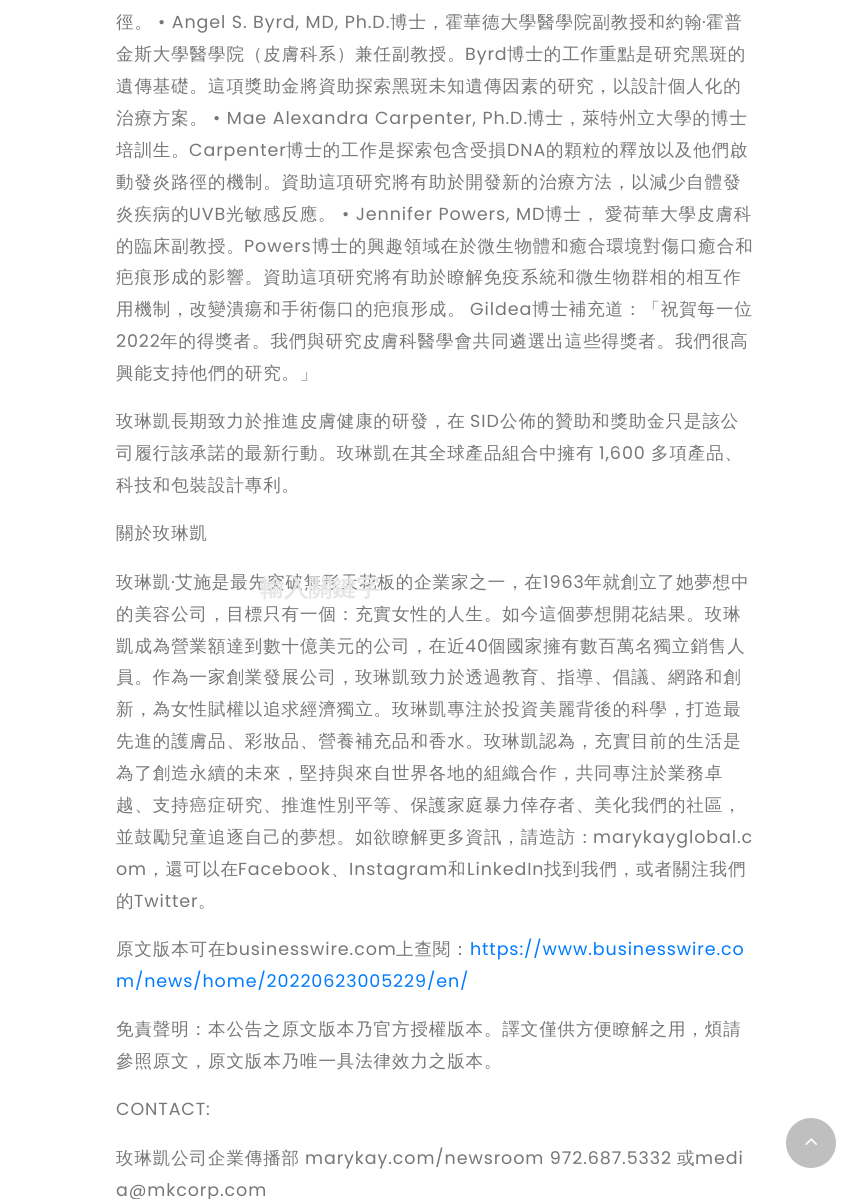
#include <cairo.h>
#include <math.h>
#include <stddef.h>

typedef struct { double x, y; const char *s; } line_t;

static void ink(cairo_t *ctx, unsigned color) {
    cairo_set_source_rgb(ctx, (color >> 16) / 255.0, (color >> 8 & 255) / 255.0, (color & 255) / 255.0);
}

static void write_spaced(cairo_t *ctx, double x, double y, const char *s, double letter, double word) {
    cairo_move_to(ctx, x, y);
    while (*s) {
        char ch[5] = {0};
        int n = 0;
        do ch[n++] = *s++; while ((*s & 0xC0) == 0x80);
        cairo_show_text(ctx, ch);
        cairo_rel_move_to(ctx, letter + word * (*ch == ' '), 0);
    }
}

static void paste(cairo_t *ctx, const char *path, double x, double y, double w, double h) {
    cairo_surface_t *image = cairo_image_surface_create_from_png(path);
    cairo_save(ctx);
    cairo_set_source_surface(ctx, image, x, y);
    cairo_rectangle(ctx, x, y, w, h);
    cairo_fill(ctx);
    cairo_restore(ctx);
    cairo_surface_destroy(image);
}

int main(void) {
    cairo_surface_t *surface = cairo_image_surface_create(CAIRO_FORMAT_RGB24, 868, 1199);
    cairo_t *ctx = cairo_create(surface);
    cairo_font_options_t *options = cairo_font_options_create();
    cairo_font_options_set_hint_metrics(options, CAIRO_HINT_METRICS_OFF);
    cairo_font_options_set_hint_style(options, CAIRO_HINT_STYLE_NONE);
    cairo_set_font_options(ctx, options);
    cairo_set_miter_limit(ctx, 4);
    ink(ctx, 0xFFFFFF);
    cairo_paint(ctx);
    cairo_select_font_face(ctx, "WenQuanYi Zen Hei Medium", CAIRO_FONT_SLANT_NORMAL, CAIRO_FONT_WEIGHT_NORMAL);
    cairo_set_font_size(ctx, 17.5);
    ink(ctx, 0x777777);
    write_spaced(ctx, 116, 28, "徑。", 0.9, 0);
    cairo_select_font_face(ctx, "Poppins", CAIRO_FONT_SLANT_NORMAL, CAIRO_FONT_WEIGHT_NORMAL);
    write_spaced(ctx, 158, 28, "• Angel S. Byrd, MD, Ph.D.", 0.9, 0);
    cairo_select_font_face(ctx, "WenQuanYi Zen Hei Medium", CAIRO_FONT_SLANT_NORMAL, CAIRO_FONT_WEIGHT_NORMAL);
    write_spaced(ctx, 390, 28, "博士，霍華德大學醫學院副教授和約翰", 0.9, 0);
    cairo_select_font_face(ctx, "Poppins", CAIRO_FONT_SLANT_NORMAL, CAIRO_FONT_WEIGHT_NORMAL);
    write_spaced(ctx, 702, 28, "·", 0.9, 0);
    cairo_select_font_face(ctx, "WenQuanYi Zen Hei Medium", CAIRO_FONT_SLANT_NORMAL, CAIRO_FONT_WEIGHT_NORMAL);
    write_spaced(ctx, 706, 28, "霍普", 0.9, 0);
    write_spaced(ctx, 116, 60, "金斯大學醫學院（皮膚科系）兼任副教授。", 0.9, 0);
    cairo_select_font_face(ctx, "Poppins", CAIRO_FONT_SLANT_NORMAL, CAIRO_FONT_WEIGHT_NORMAL);
    write_spaced(ctx, 465, 60, "Byrd", 0.9, 0);
    cairo_select_font_face(ctx, "WenQuanYi Zen Hei Medium", CAIRO_FONT_SLANT_NORMAL, CAIRO_FONT_WEIGHT_NORMAL);
    {
        static const line_t items[] = {
            {507, 60, "博士的工作重點是研究黑斑的"},
            {116, 92, "遺傳基礎。這項獎助金將資助探索黑斑未知遺傳因素的研究，以設計個人化的"},
            {116, 124, "治療方案。"},
        };
        for (size_t i = 0; i < sizeof items / sizeof *items; i++) {
            write_spaced(ctx, items[i].x, items[i].y, items[i].s, 0.9, 0);
        }
    }
    cairo_select_font_face(ctx, "Poppins", CAIRO_FONT_SLANT_NORMAL, CAIRO_FONT_WEIGHT_NORMAL);
    write_spaced(ctx, 213, 124, "• Mae Alexandra Carpenter, Ph.D.", 0.9, 0);
    cairo_select_font_face(ctx, "WenQuanYi Zen Hei Medium", CAIRO_FONT_SLANT_NORMAL, CAIRO_FONT_WEIGHT_NORMAL);
    write_spaced(ctx, 527, 124, "博士，萊特州立大學的博士", 0.9, 0);
    write_spaced(ctx, 116, 156, "培訓生。", 0.9, 0);
    cairo_select_font_face(ctx, "Poppins", CAIRO_FONT_SLANT_NORMAL, CAIRO_FONT_WEIGHT_NORMAL);
    write_spaced(ctx, 189, 156, "Carpenter", 0.9, 0);
    cairo_select_font_face(ctx, "WenQuanYi Zen Hei Medium", CAIRO_FONT_SLANT_NORMAL, CAIRO_FONT_WEIGHT_NORMAL);
    write_spaced(ctx, 286, 156, "博士的工作是探索包含受損", 0.9, 0);
    cairo_select_font_face(ctx, "Poppins", CAIRO_FONT_SLANT_NORMAL, CAIRO_FONT_WEIGHT_NORMAL);
    write_spaced(ctx, 507, 156, "DNA", 0.9, 0);
    cairo_select_font_face(ctx, "WenQuanYi Zen Hei Medium", CAIRO_FONT_SLANT_NORMAL, CAIRO_FONT_WEIGHT_NORMAL);
    {
        static const line_t items[] = {
            {546, 156, "的顆粒的釋放以及他們啟"},
            {116, 188, "動發炎路徑的機制。資助這項研究將有助於開發新的治療方法，以減少自體發"},
            {116, 220, "炎疾病的"},
        };
        for (size_t i = 0; i < sizeof items / sizeof *items; i++) {
            write_spaced(ctx, items[i].x, items[i].y, items[i].s, 0.9, 0);
        }
    }
    cairo_select_font_face(ctx, "Poppins", CAIRO_FONT_SLANT_NORMAL, CAIRO_FONT_WEIGHT_NORMAL);
    write_spaced(ctx, 189, 220, "UVB", 0.9, 0);
    cairo_select_font_face(ctx, "WenQuanYi Zen Hei Medium", CAIRO_FONT_SLANT_NORMAL, CAIRO_FONT_WEIGHT_NORMAL);
    write_spaced(ctx, 226, 220, "光敏感反應。", 0.9, 0);
    cairo_select_font_face(ctx, "Poppins", CAIRO_FONT_SLANT_NORMAL, CAIRO_FONT_WEIGHT_NORMAL);
    write_spaced(ctx, 342, 220, "• Jennifer Powers, MD", 0.9, 0);
    cairo_select_font_face(ctx, "WenQuanYi Zen Hei Medium", CAIRO_FONT_SLANT_NORMAL, CAIRO_FONT_WEIGHT_NORMAL);
    {
        static const line_t items[] = {
            {545, 220, "博士，"},
            {605, 220, "愛荷華大學皮膚科"},
            {116, 252, "的臨床副教授。"},
        };
        for (size_t i = 0; i < sizeof items / sizeof *items; i++) {
            write_spaced(ctx, items[i].x, items[i].y, items[i].s, 0.9, 0);
        }
    }
    cairo_select_font_face(ctx, "Poppins", CAIRO_FONT_SLANT_NORMAL, CAIRO_FONT_WEIGHT_NORMAL);
    write_spaced(ctx, 244, 252, "Powers", 0.9, 0);
    cairo_select_font_face(ctx, "WenQuanYi Zen Hei Medium", CAIRO_FONT_SLANT_NORMAL, CAIRO_FONT_WEIGHT_NORMAL);
    {
        static const line_t items[] = {
            {312, 252, "博士的興趣領域在於微生物體和癒合環境對傷口癒合和"},
            {116, 283, "疤痕形成的影響。資助這項研究將有助於瞭解免疫系統和微生物群相的相互作"},
            {116, 315, "用機制，改變潰瘍和手術傷口的疤痕形成。"},
        };
        for (size_t i = 0; i < sizeof items / sizeof *items; i++) {
            write_spaced(ctx, items[i].x, items[i].y, items[i].s, 0.9, 0);
        }
    }
    cairo_select_font_face(ctx, "Poppins", CAIRO_FONT_SLANT_NORMAL, CAIRO_FONT_WEIGHT_NORMAL);
    write_spaced(ctx, 470, 315, "Gildea", 0.9, 0);
    cairo_select_font_face(ctx, "WenQuanYi Zen Hei Medium", CAIRO_FONT_SLANT_NORMAL, CAIRO_FONT_WEIGHT_NORMAL);
    write_spaced(ctx, 532, 315, "博士補充道：「祝賀每一位", 0.9, 0);
    cairo_select_font_face(ctx, "Poppins", CAIRO_FONT_SLANT_NORMAL, CAIRO_FONT_WEIGHT_NORMAL);
    write_spaced(ctx, 116, 347, "2022", 0.9, 0);
    cairo_select_font_face(ctx, "WenQuanYi Zen Hei Medium", CAIRO_FONT_SLANT_NORMAL, CAIRO_FONT_WEIGHT_NORMAL);
    {
        static const line_t items[] = {
            {160, 347, "年的得獎者。我們與研究皮膚科醫學會共同遴選出這些得獎者。我們很高"},
            {116, 379, "興能支持他們的研究。」"},
            {116, 427, "玫琳凱長期致力於推進皮膚健康的研發，在"},
        };
        for (size_t i = 0; i < sizeof items / sizeof *items; i++) {
            write_spaced(ctx, items[i].x, items[i].y, items[i].s, 0.9, 0);
        }
    }
    cairo_select_font_face(ctx, "Poppins", CAIRO_FONT_SLANT_NORMAL, CAIRO_FONT_WEIGHT_NORMAL);
    write_spaced(ctx, 470, 427, "SID", 0.9, 0);
    cairo_select_font_face(ctx, "WenQuanYi Zen Hei Medium", CAIRO_FONT_SLANT_NORMAL, CAIRO_FONT_WEIGHT_NORMAL);
    write_spaced(ctx, 500, 427, "公佈的贊助和獎助金只是該公", 0.9, 0);
    write_spaced(ctx, 116, 459, "司履行該承諾的最新行動。玫琳凱在其全球產品組合中擁有", 0.9, 0);
    cairo_select_font_face(ctx, "Poppins", CAIRO_FONT_SLANT_NORMAL, CAIRO_FONT_WEIGHT_NORMAL);
    write_spaced(ctx, 599, 459, "1,600", 0.9, 0);
    cairo_select_font_face(ctx, "WenQuanYi Zen Hei Medium", CAIRO_FONT_SLANT_NORMAL, CAIRO_FONT_WEIGHT_NORMAL);
    {
        static const line_t items[] = {
            {651, 459, "多項產品、"},
            {116, 491, "科技和包裝設計專利。"},
            {116, 539, "關於玫琳凱"},
            {116, 588, "玫琳凱"},
        };
        for (size_t i = 0; i < sizeof items / sizeof *items; i++) {
            write_spaced(ctx, items[i].x, items[i].y, items[i].s, 0.9, 0);
        }
    }
    cairo_select_font_face(ctx, "Poppins", CAIRO_FONT_SLANT_NORMAL, CAIRO_FONT_WEIGHT_NORMAL);
    write_spaced(ctx, 171, 588, "·", 0.9, 0);
    cairo_select_font_face(ctx, "WenQuanYi Zen Hei Medium", CAIRO_FONT_SLANT_NORMAL, CAIRO_FONT_WEIGHT_NORMAL);
    write_spaced(ctx, 175, 588, "艾施是最先突破無形天花板的企業家之一，在", 0.9, 0);
    cairo_select_font_face(ctx, "Poppins", CAIRO_FONT_SLANT_NORMAL, CAIRO_FONT_WEIGHT_NORMAL);
    write_spaced(ctx, 543, 588, "1963", 0.9, 0);
    cairo_select_font_face(ctx, "WenQuanYi Zen Hei Medium", CAIRO_FONT_SLANT_NORMAL, CAIRO_FONT_WEIGHT_NORMAL);
    {
        static const line_t items[] = {
            {584, 588, "年就創立了她夢想中"},
            {116, 620, "的美容公司，目標只有一個：充實女性的人生。如今這個夢想開花結果。玫琳"},
            {116, 652, "凱成為營業額達到數十億美元的公司，在近"},
        };
        for (size_t i = 0; i < sizeof items / sizeof *items; i++) {
            write_spaced(ctx, items[i].x, items[i].y, items[i].s, 0.9, 0);
        }
    }
    cairo_select_font_face(ctx, "Poppins", CAIRO_FONT_SLANT_NORMAL, CAIRO_FONT_WEIGHT_NORMAL);
    write_spaced(ctx, 465, 652, "40", 0.9, 0);
    cairo_select_font_face(ctx, "WenQuanYi Zen Hei Medium", CAIRO_FONT_SLANT_NORMAL, CAIRO_FONT_WEIGHT_NORMAL);
    {
        static const line_t items[] = {
            {488, 652, "個國家擁有數百萬名獨立銷售人"},
            {116, 683, "員。作為一家創業發展公司，玫琳凱致力於透過教育、指導、倡議、網路和創"},
            {116, 715, "新，為女性賦權以追求經濟獨立。玫琳凱專注於投資美麗背後的科學，打造最"},
            {116, 747, "先進的護膚品、彩妝品、營養補充品和香水。玫琳凱認為，充實目前的生活是"},
            {116, 779, "為了創造永續的未來，堅持與來自世界各地的組織合作，共同專注於業務卓"},
            {116, 811, "越、支持癌症研究、推進性別平等、保護家庭暴力倖存者、美化我們的社區，"},
            {116, 843, "並鼓勵兒童追逐自己的夢想。如欲瞭解更多資訊，請造訪："},
        };
        for (size_t i = 0; i < sizeof items / sizeof *items; i++) {
            write_spaced(ctx, items[i].x, items[i].y, items[i].s, 0.9, 0);
        }
    }
    cairo_select_font_face(ctx, "Poppins", CAIRO_FONT_SLANT_NORMAL, CAIRO_FONT_WEIGHT_NORMAL);
    write_spaced(ctx, 593, 843, "marykayglobal.c", 0.9, 0);
    write_spaced(ctx, 116, 875, "om", 0.9, 0);
    cairo_select_font_face(ctx, "WenQuanYi Zen Hei Medium", CAIRO_FONT_SLANT_NORMAL, CAIRO_FONT_WEIGHT_NORMAL);
    write_spaced(ctx, 147, 875, "，還可以在", 0.9, 0);
    cairo_select_font_face(ctx, "Poppins", CAIRO_FONT_SLANT_NORMAL, CAIRO_FONT_WEIGHT_NORMAL);
    write_spaced(ctx, 238, 875, "Facebook", 0.9, 0);
    cairo_select_font_face(ctx, "WenQuanYi Zen Hei Medium", CAIRO_FONT_SLANT_NORMAL, CAIRO_FONT_WEIGHT_NORMAL);
    write_spaced(ctx, 331, 875, "、", 0.9, 0);
    cairo_select_font_face(ctx, "Poppins", CAIRO_FONT_SLANT_NORMAL, CAIRO_FONT_WEIGHT_NORMAL);
    write_spaced(ctx, 349, 875, "Instagram", 0.9, 0);
    cairo_select_font_face(ctx, "WenQuanYi Zen Hei Medium", CAIRO_FONT_SLANT_NORMAL, CAIRO_FONT_WEIGHT_NORMAL);
    write_spaced(ctx, 448, 875, "和", 0.9, 0);
    cairo_select_font_face(ctx, "Poppins", CAIRO_FONT_SLANT_NORMAL, CAIRO_FONT_WEIGHT_NORMAL);
    write_spaced(ctx, 467, 875, "LinkedIn", 0.9, 0);
    cairo_select_font_face(ctx, "WenQuanYi Zen Hei Medium", CAIRO_FONT_SLANT_NORMAL, CAIRO_FONT_WEIGHT_NORMAL);
    write_spaced(ctx, 544, 875, "找到我們，或者關注我們", 0.9, 0);
    write_spaced(ctx, 116, 907, "的", 0.9, 0);
    cairo_select_font_face(ctx, "Poppins", CAIRO_FONT_SLANT_NORMAL, CAIRO_FONT_WEIGHT_NORMAL);
    write_spaced(ctx, 134, 907, "Twitter", 0.9, 0);
    cairo_select_font_face(ctx, "WenQuanYi Zen Hei Medium", CAIRO_FONT_SLANT_NORMAL, CAIRO_FONT_WEIGHT_NORMAL);
    write_spaced(ctx, 198, 907, "。", 0.9, 0);
    write_spaced(ctx, 116, 955, "原文版本可在", 0.9, 0);
    cairo_select_font_face(ctx, "Poppins", CAIRO_FONT_SLANT_NORMAL, CAIRO_FONT_WEIGHT_NORMAL);
    write_spaced(ctx, 226, 955, "businesswire.com", 0.9, 0);
    cairo_select_font_face(ctx, "WenQuanYi Zen Hei Medium", CAIRO_FONT_SLANT_NORMAL, CAIRO_FONT_WEIGHT_NORMAL);
    write_spaced(ctx, 396, 955, "上查閱：", 0.9, 0);
    cairo_select_font_face(ctx, "Poppins", CAIRO_FONT_SLANT_NORMAL, CAIRO_FONT_WEIGHT_NORMAL);
    ink(ctx, 0x007BFF);
    write_spaced(ctx, 470, 955, "https://www.businesswire.co", 0.9, 0);
    write_spaced(ctx, 116, 987, "m/news/home/20220623005229/en/", 0.9, 0);
    cairo_select_font_face(ctx, "WenQuanYi Zen Hei Medium", CAIRO_FONT_SLANT_NORMAL, CAIRO_FONT_WEIGHT_NORMAL);
    ink(ctx, 0x777777);
    write_spaced(ctx, 116, 1035, "免責聲明：本公告之原文版本乃官方授權版本。譯文僅供方便瞭解之用，煩請", 0.9, 0);
    write_spaced(ctx, 116, 1067, "參照原文，原文版本乃唯一具法律效力之版本。", 0.9, 0);
    cairo_select_font_face(ctx, "Poppins", CAIRO_FONT_SLANT_NORMAL, CAIRO_FONT_WEIGHT_NORMAL);
    write_spaced(ctx, 116, 1115, "CONTACT:", 0.9, 0);
    cairo_select_font_face(ctx, "WenQuanYi Zen Hei Medium", CAIRO_FONT_SLANT_NORMAL, CAIRO_FONT_WEIGHT_NORMAL);
    write_spaced(ctx, 116, 1164, "玫琳凱公司企業傳播部", 0.9, 0);
    cairo_select_font_face(ctx, "Poppins", CAIRO_FONT_SLANT_NORMAL, CAIRO_FONT_WEIGHT_NORMAL);
    write_spaced(ctx, 305, 1164, "marykay.com/newsroom 972.687.5332", 0.9, 0);
    cairo_select_font_face(ctx, "WenQuanYi Zen Hei Medium", CAIRO_FONT_SLANT_NORMAL, CAIRO_FONT_WEIGHT_NORMAL);
    write_spaced(ctx, 677, 1164, "或", 0.9, 0);
    cairo_select_font_face(ctx, "Poppins", CAIRO_FONT_SLANT_NORMAL, CAIRO_FONT_WEIGHT_NORMAL);
    write_spaced(ctx, 695, 1164, "medi", 0.9, 0);
    write_spaced(ctx, 116, 1196, "a@mkcorp.com", 0.9, 0);
    cairo_select_font_face(ctx, "WenQuanYi Zen Hei", CAIRO_FONT_SLANT_NORMAL, CAIRO_FONT_WEIGHT_BOLD);
    cairo_set_font_size(ctx, 24);
    ink(ctx, 0xE6E6E6);
    cairo_move_to(ctx, 260, 596);
    cairo_show_text(ctx, "輸入關鍵字");
    ink(ctx, 0xBFBFBF);
    cairo_new_path(ctx);
    cairo_arc(ctx, 811, 1143, 25, 0, 2 * M_PI);
    cairo_fill(ctx);
    paste(ctx, "media/1.png", 805, 1138, 12, 7);
    cairo_surface_write_to_png(surface, "image.png");
    cairo_font_options_destroy(options);
    cairo_destroy(ctx);
    cairo_surface_destroy(surface);
    return 0;
}
